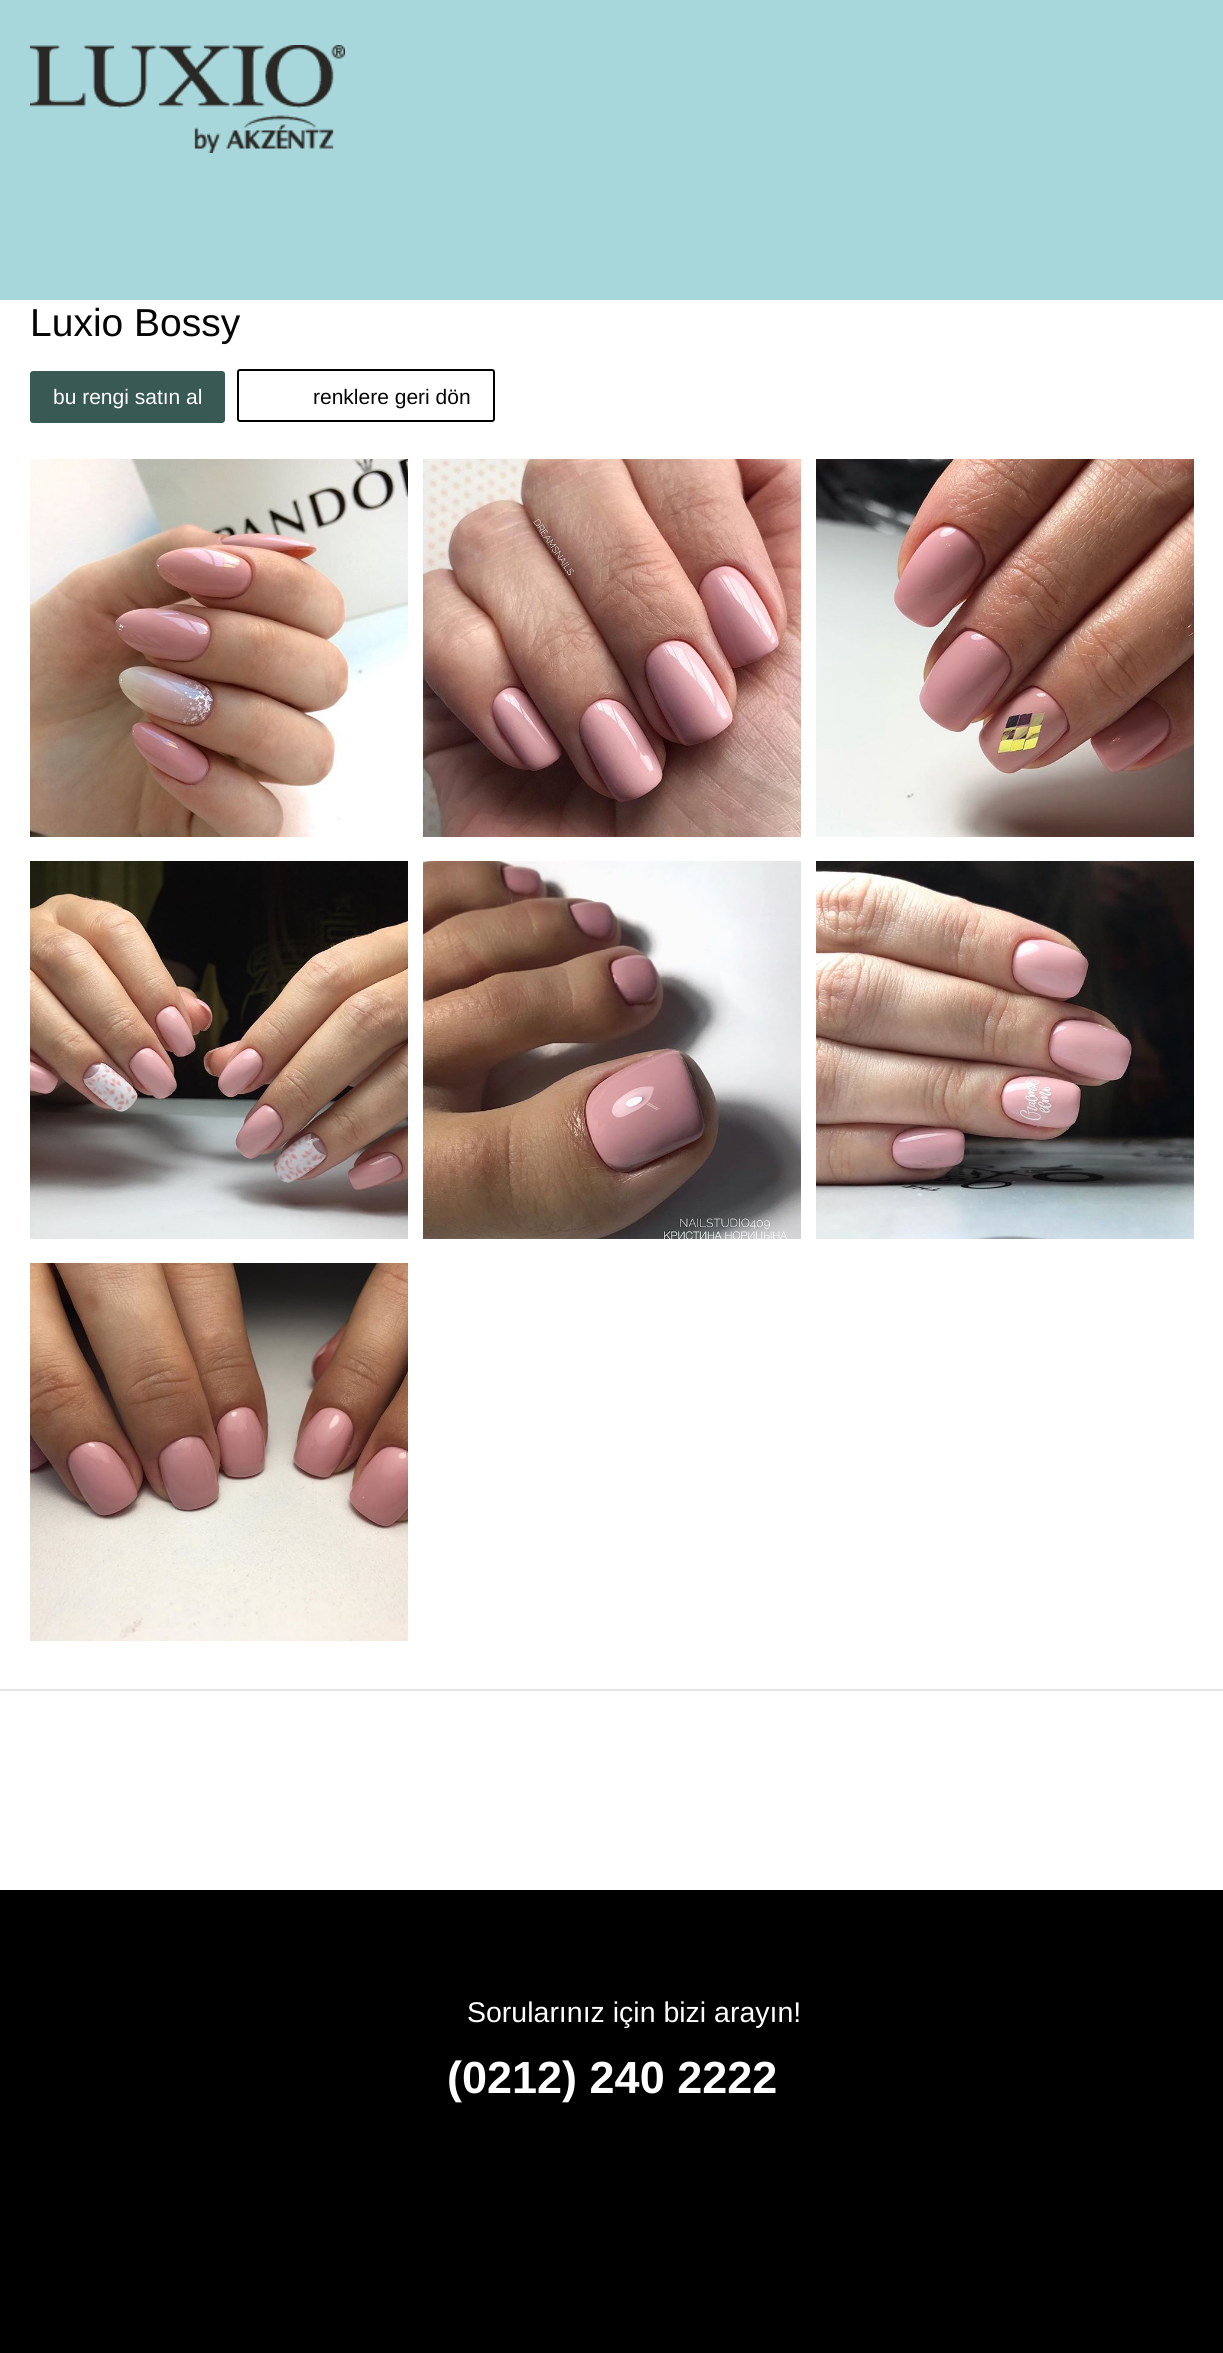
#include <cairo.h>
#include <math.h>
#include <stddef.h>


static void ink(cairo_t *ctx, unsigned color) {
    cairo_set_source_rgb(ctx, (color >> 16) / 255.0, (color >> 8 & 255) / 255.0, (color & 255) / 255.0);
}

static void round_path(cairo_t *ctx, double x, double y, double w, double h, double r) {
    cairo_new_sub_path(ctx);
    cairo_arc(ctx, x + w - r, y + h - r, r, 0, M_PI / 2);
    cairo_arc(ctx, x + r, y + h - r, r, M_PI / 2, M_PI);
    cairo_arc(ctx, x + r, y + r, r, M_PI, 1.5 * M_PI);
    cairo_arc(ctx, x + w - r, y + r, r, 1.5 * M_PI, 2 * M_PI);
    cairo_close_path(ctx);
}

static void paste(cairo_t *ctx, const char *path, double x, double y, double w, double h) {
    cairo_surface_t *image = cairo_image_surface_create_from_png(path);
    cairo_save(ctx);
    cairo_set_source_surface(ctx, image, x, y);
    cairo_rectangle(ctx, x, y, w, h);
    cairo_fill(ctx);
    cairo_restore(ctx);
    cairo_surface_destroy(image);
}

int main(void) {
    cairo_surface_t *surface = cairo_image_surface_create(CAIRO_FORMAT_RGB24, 1223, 2353);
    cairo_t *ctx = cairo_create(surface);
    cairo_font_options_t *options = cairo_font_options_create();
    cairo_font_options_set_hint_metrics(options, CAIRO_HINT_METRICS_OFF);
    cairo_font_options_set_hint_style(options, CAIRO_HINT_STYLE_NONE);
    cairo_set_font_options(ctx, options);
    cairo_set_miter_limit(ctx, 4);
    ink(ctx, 0xFFFFFF);
    cairo_paint(ctx);
    ink(ctx, 0xA7D7DB);
    cairo_rectangle(ctx, 0, 0, 1223, 300);
    cairo_fill(ctx);
    paste(ctx, "media/1.png", 30, 45, 315, 108);
    cairo_select_font_face(ctx, "Liberation Sans", CAIRO_FONT_SLANT_NORMAL, CAIRO_FONT_WEIGHT_NORMAL);
    cairo_set_font_size(ctx, 39);
    ink(ctx, 0x050505);
    cairo_move_to(ctx, 30, 336);
    cairo_show_text(ctx, "Luxio Bossy");
    ink(ctx, 0x395954);
    round_path(ctx, 30, 371, 195, 52, 3);
    cairo_fill(ctx);
    cairo_set_font_size(ctx, 21);
    ink(ctx, 0xFFFFFF);
    cairo_move_to(ctx, 53, 404);
    cairo_show_text(ctx, "bu rengi satın al");
    round_path(ctx, 238, 370, 256, 51, 2);
    ink(ctx, 0x000000);
    cairo_stroke(ctx);
    ink(ctx, 0x050505);
    cairo_move_to(ctx, 313, 404);
    cairo_show_text(ctx, "renklere geri dön");
    paste(ctx, "media/2.png", 30, 459, 378, 378);
    paste(ctx, "media/3.png", 423, 459, 378, 378);
    paste(ctx, "media/4.png", 816, 459, 378, 378);
    paste(ctx, "media/5.png", 30, 861, 378, 378);
    paste(ctx, "media/6.png", 423, 861, 378, 378);
    paste(ctx, "media/7.png", 816, 861, 378, 378);
    paste(ctx, "media/8.png", 30, 1263, 378, 378);
    ink(ctx, 0xE5E5E5);
    cairo_rectangle(ctx, 0, 1689, 1223, 2);
    cairo_fill(ctx);
    ink(ctx, 0x000000);
    cairo_rectangle(ctx, 0, 1890, 1223, 463);
    cairo_fill(ctx);
    cairo_set_font_size(ctx, 28.5);
    ink(ctx, 0xFFFFFF);
    cairo_move_to(ctx, 467, 2022);
    cairo_show_text(ctx, "Sorularınız için bizi arayın!");
    cairo_select_font_face(ctx, "Liberation Sans", CAIRO_FONT_SLANT_NORMAL, CAIRO_FONT_WEIGHT_BOLD);
    cairo_set_font_size(ctx, 45);
    cairo_move_to(ctx, 447, 2093);
    cairo_show_text(ctx, "(0212) 240 2222");
    cairo_surface_write_to_png(surface, "image.png");
    cairo_font_options_destroy(options);
    cairo_destroy(ctx);
    cairo_surface_destroy(surface);
    return 0;
}
